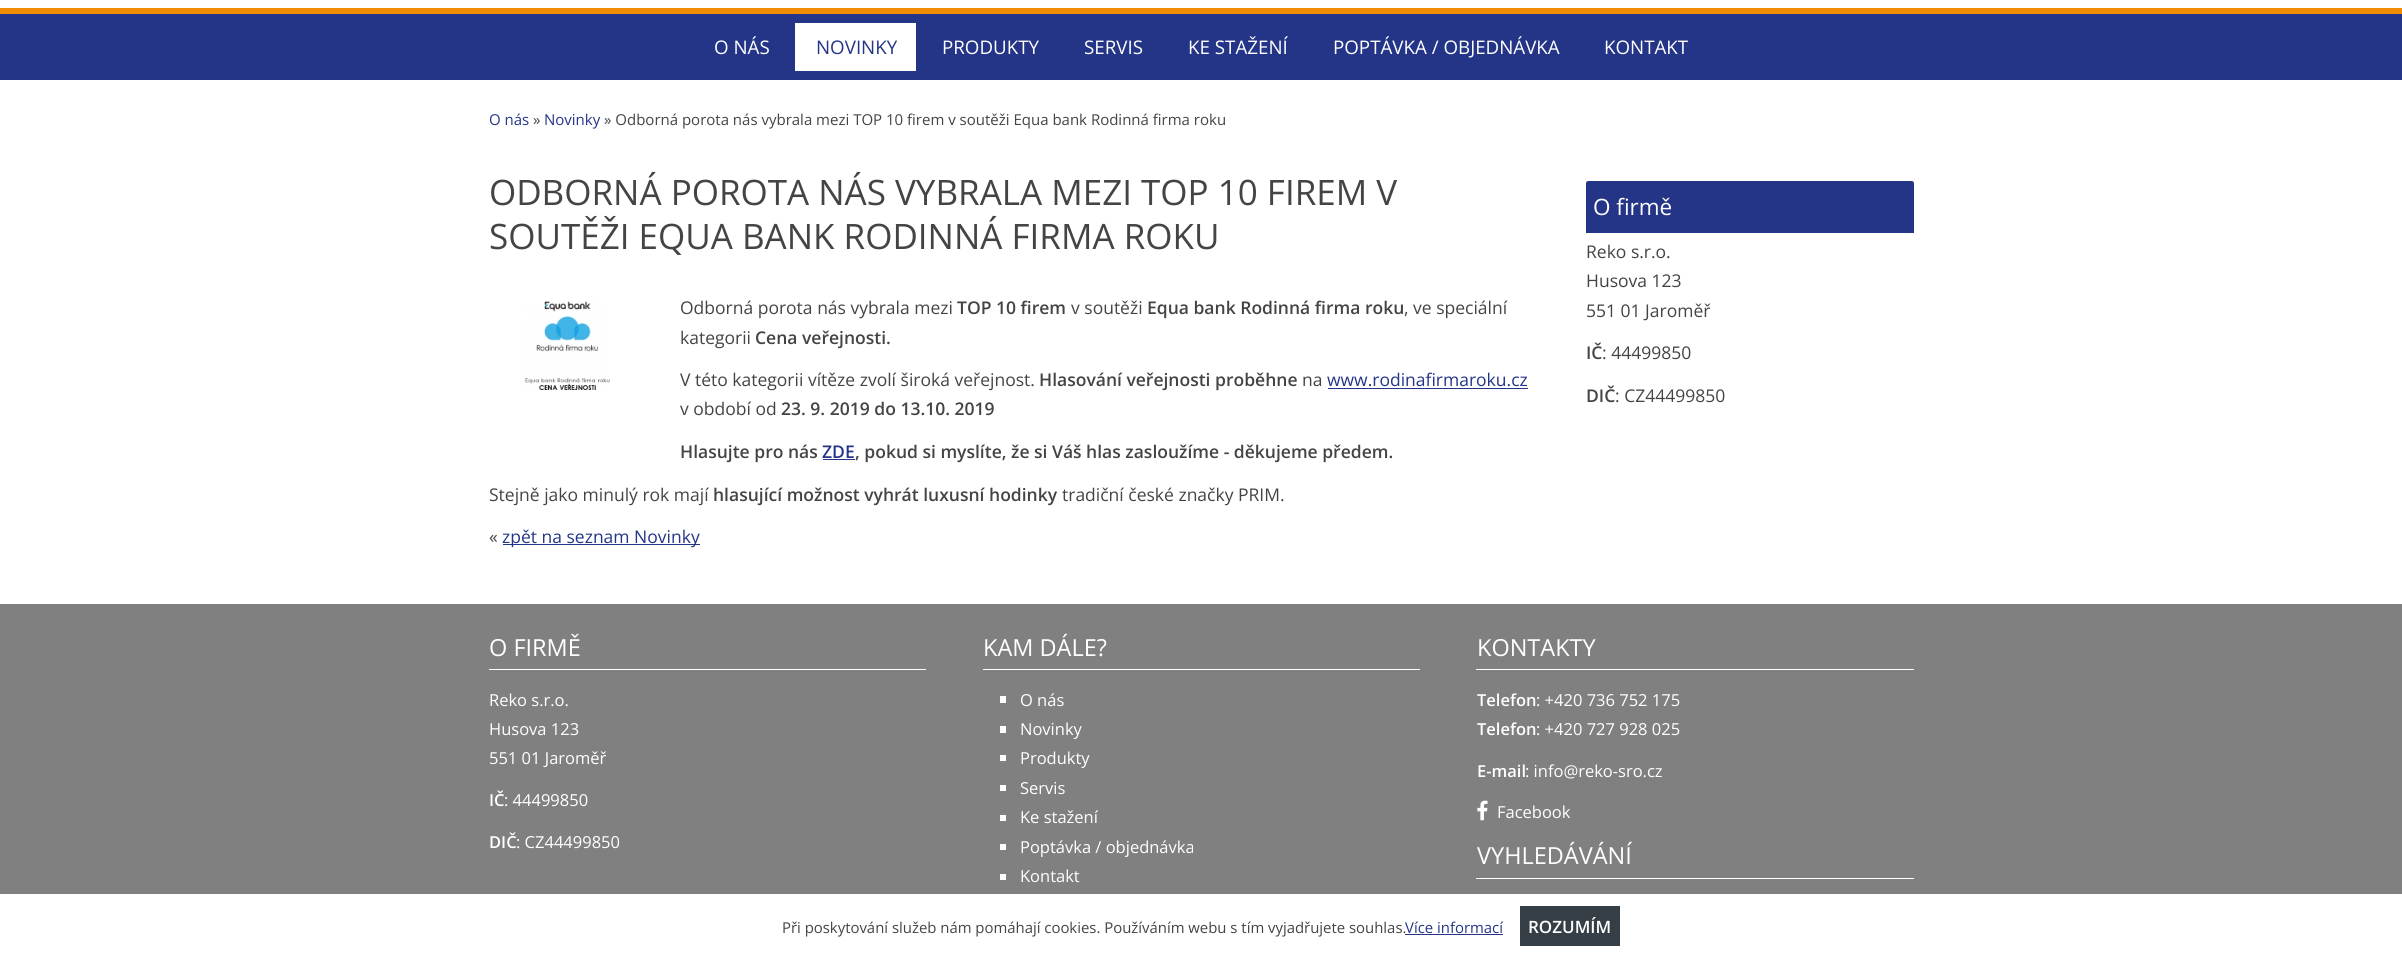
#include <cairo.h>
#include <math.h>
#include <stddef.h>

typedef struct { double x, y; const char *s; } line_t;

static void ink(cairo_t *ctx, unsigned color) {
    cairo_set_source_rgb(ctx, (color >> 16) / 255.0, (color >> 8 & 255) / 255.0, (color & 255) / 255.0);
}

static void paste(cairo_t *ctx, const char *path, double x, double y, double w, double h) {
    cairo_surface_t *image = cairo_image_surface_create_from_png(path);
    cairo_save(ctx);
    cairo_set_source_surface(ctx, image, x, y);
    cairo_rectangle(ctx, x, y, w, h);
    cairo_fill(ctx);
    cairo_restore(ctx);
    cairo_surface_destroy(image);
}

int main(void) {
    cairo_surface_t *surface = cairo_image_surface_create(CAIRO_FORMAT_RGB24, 2402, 955);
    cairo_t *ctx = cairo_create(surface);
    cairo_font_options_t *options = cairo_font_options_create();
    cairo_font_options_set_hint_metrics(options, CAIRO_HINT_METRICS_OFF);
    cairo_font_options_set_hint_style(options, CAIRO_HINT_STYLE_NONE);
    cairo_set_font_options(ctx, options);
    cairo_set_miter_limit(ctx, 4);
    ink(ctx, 0x243588);
    cairo_paint(ctx);
    ink(ctx, 0xFFFFFF);
    cairo_rectangle(ctx, 0, 0, 2402, 8);
    cairo_fill(ctx);
    ink(ctx, 0xF28C00);
    cairo_rectangle(ctx, 0, 8, 2402, 6);
    cairo_fill(ctx);
    cairo_select_font_face(ctx, "Open Sans", CAIRO_FONT_SLANT_NORMAL, CAIRO_FONT_WEIGHT_NORMAL);
    cairo_set_font_size(ctx, 18.75);
    ink(ctx, 0xFFFFFF);
    cairo_move_to(ctx, 714, 54);
    cairo_show_text(ctx, "O NÁS");
    cairo_rectangle(ctx, 795, 23, 121, 48);
    cairo_fill(ctx);
    ink(ctx, 0x243588);
    cairo_move_to(ctx, 816, 54);
    cairo_show_text(ctx, "NOVINKY");
    ink(ctx, 0xFFFFFF);
    {
        static const line_t items[] = {
            {942, 54, "PRODUKTY"},
            {1084, 54, "SERVIS"},
            {1188, 54, "KE STAŽENÍ"},
            {1333, 54, "POPTÁVKA / OBJEDNÁVKA"},
            {1604, 54, "KONTAKT"},
        };
        for (size_t i = 0; i < sizeof items / sizeof *items; i++) {
            cairo_move_to(ctx, items[i].x, items[i].y);
            cairo_show_text(ctx, items[i].s);
        }
    }
    cairo_rectangle(ctx, 0, 80, 2402, 524);
    cairo_fill(ctx);
    cairo_set_font_size(ctx, 15);
    ink(ctx, 0x243588);
    cairo_move_to(ctx, 489, 125);
    cairo_show_text(ctx, "O nás");
    ink(ctx, 0x444444);
    cairo_move_to(ctx, 533, 125);
    cairo_show_text(ctx, "»");
    ink(ctx, 0x243588);
    cairo_move_to(ctx, 544, 125);
    cairo_show_text(ctx, "Novinky");
    ink(ctx, 0x444444);
    cairo_move_to(ctx, 604, 125);
    cairo_show_text(ctx, "» Odborná porota nás vybrala mezi TOP 10 firem v soutěži Equa bank Rodinná firma roku");
    cairo_set_font_size(ctx, 35);
    cairo_move_to(ctx, 489, 205);
    cairo_show_text(ctx, "ODBORNÁ POROTA NÁS VYBRALA MEZI TOP 10 FIREM V");
    cairo_move_to(ctx, 489, 249);
    cairo_show_text(ctx, "SOUTĚŽI EQUA BANK RODINNÁ FIRMA ROKU");
    paste(ctx, "media/1.png", 523, 301, 87, 89);
    cairo_set_font_size(ctx, 17.5);
    cairo_move_to(ctx, 680, 314);
    cairo_show_text(ctx, "Odborná porota nás vybrala mezi");
    cairo_select_font_face(ctx, "Open Sans SemiBold", CAIRO_FONT_SLANT_NORMAL, CAIRO_FONT_WEIGHT_NORMAL);
    cairo_move_to(ctx, 957, 314);
    cairo_show_text(ctx, "TOP 10 firem");
    cairo_select_font_face(ctx, "Open Sans", CAIRO_FONT_SLANT_NORMAL, CAIRO_FONT_WEIGHT_NORMAL);
    cairo_move_to(ctx, 1071, 314);
    cairo_show_text(ctx, "v soutěži");
    cairo_select_font_face(ctx, "Open Sans SemiBold", CAIRO_FONT_SLANT_NORMAL, CAIRO_FONT_WEIGHT_NORMAL);
    cairo_move_to(ctx, 1147, 314);
    cairo_show_text(ctx, "Equa bank Rodinná firma roku");
    cairo_select_font_face(ctx, "Open Sans", CAIRO_FONT_SLANT_NORMAL, CAIRO_FONT_WEIGHT_NORMAL);
    cairo_move_to(ctx, 1404, 314);
    cairo_show_text(ctx, ", ve speciální");
    cairo_move_to(ctx, 680, 344);
    cairo_show_text(ctx, "kategorii");
    cairo_select_font_face(ctx, "Open Sans SemiBold", CAIRO_FONT_SLANT_NORMAL, CAIRO_FONT_WEIGHT_NORMAL);
    cairo_move_to(ctx, 755, 344);
    cairo_show_text(ctx, "Cena veřejnosti.");
    cairo_select_font_face(ctx, "Open Sans", CAIRO_FONT_SLANT_NORMAL, CAIRO_FONT_WEIGHT_NORMAL);
    cairo_move_to(ctx, 680, 386);
    cairo_show_text(ctx, "V této kategorii vítěze zvolí široká veřejnost.");
    cairo_select_font_face(ctx, "Open Sans SemiBold", CAIRO_FONT_SLANT_NORMAL, CAIRO_FONT_WEIGHT_NORMAL);
    cairo_move_to(ctx, 1039, 386);
    cairo_show_text(ctx, "Hlasování veřejnosti proběhne");
    cairo_select_font_face(ctx, "Open Sans", CAIRO_FONT_SLANT_NORMAL, CAIRO_FONT_WEIGHT_NORMAL);
    cairo_move_to(ctx, 1302, 386);
    cairo_show_text(ctx, "na");
    ink(ctx, 0x243588);
    cairo_move_to(ctx, 1327, 386);
    cairo_show_text(ctx, "www.rodinafirmaroku.cz");
    cairo_rectangle(ctx, 1328, 388, 200, 1);
    cairo_fill(ctx);
    ink(ctx, 0x444444);
    cairo_move_to(ctx, 680, 415);
    cairo_show_text(ctx, "v období od");
    cairo_select_font_face(ctx, "Open Sans SemiBold", CAIRO_FONT_SLANT_NORMAL, CAIRO_FONT_WEIGHT_NORMAL);
    cairo_move_to(ctx, 781, 415);
    cairo_show_text(ctx, "23. 9. 2019 do 13.10. 2019");
    cairo_move_to(ctx, 680, 458);
    cairo_show_text(ctx, "Hlasujte pro nás");
    ink(ctx, 0x243588);
    cairo_move_to(ctx, 822, 458);
    cairo_show_text(ctx, "ZDE");
    ink(ctx, 0x444444);
    cairo_move_to(ctx, 855, 458);
    cairo_show_text(ctx, ", pokud si myslíte, že si Váš hlas zasloužíme - děkujeme předem.");
    ink(ctx, 0x243588);
    cairo_rectangle(ctx, 823, 459, 32, 1);
    cairo_fill(ctx);
    cairo_select_font_face(ctx, "Open Sans", CAIRO_FONT_SLANT_NORMAL, CAIRO_FONT_WEIGHT_NORMAL);
    ink(ctx, 0x444444);
    cairo_move_to(ctx, 489, 501);
    cairo_show_text(ctx, "Stejně jako minulý rok mají");
    cairo_select_font_face(ctx, "Open Sans SemiBold", CAIRO_FONT_SLANT_NORMAL, CAIRO_FONT_WEIGHT_NORMAL);
    cairo_move_to(ctx, 713, 501);
    cairo_show_text(ctx, "hlasující možnost vyhrát luxusní hodinky");
    cairo_select_font_face(ctx, "Open Sans", CAIRO_FONT_SLANT_NORMAL, CAIRO_FONT_WEIGHT_NORMAL);
    cairo_move_to(ctx, 1062, 501);
    cairo_show_text(ctx, "tradiční české značky PRIM.");
    cairo_move_to(ctx, 489, 543);
    cairo_show_text(ctx, "«");
    ink(ctx, 0x243588);
    cairo_rectangle(ctx, 503, 544, 197, 1);
    cairo_fill(ctx);
    cairo_move_to(ctx, 502, 543);
    cairo_show_text(ctx, "zpět na seznam Novinky");
    cairo_new_path(ctx);
    cairo_move_to(ctx, 1588.5, 181);
    cairo_line_to(ctx, 1911.5, 181);
    cairo_curve_to(ctx, 1913, 181, 1914, 182, 1914, 183.5);
    cairo_line_to(ctx, 1914, 233);
    cairo_line_to(ctx, 1586, 233);
    cairo_line_to(ctx, 1586, 183.5);
    cairo_curve_to(ctx, 1586, 182, 1587, 181, 1588.5, 181);
    cairo_close_path(ctx);
    cairo_fill(ctx);
    cairo_set_font_size(ctx, 22.5);
    ink(ctx, 0xFFFFFF);
    cairo_move_to(ctx, 1593, 215);
    cairo_show_text(ctx, "O firmě");
    cairo_set_font_size(ctx, 17.5);
    ink(ctx, 0x444444);
    {
        static const line_t items[] = {
            {1586, 258, "Reko s.r.o."},
            {1586, 287, "Husova 123"},
            {1586, 317, "551 01 Jaroměř"},
        };
        for (size_t i = 0; i < sizeof items / sizeof *items; i++) {
            cairo_move_to(ctx, items[i].x, items[i].y);
            cairo_show_text(ctx, items[i].s);
        }
    }
    cairo_select_font_face(ctx, "Open Sans SemiBold", CAIRO_FONT_SLANT_NORMAL, CAIRO_FONT_WEIGHT_NORMAL);
    cairo_move_to(ctx, 1586, 359);
    cairo_show_text(ctx, "IČ");
    cairo_select_font_face(ctx, "Open Sans", CAIRO_FONT_SLANT_NORMAL, CAIRO_FONT_WEIGHT_NORMAL);
    cairo_move_to(ctx, 1602, 359);
    cairo_show_text(ctx, ": 44499850");
    cairo_select_font_face(ctx, "Open Sans SemiBold", CAIRO_FONT_SLANT_NORMAL, CAIRO_FONT_WEIGHT_NORMAL);
    cairo_move_to(ctx, 1586, 402);
    cairo_show_text(ctx, "DIČ");
    cairo_select_font_face(ctx, "Open Sans", CAIRO_FONT_SLANT_NORMAL, CAIRO_FONT_WEIGHT_NORMAL);
    cairo_move_to(ctx, 1615, 402);
    cairo_show_text(ctx, ": CZ44499850");
    ink(ctx, 0x808080);
    cairo_rectangle(ctx, 0, 604, 2402, 290);
    cairo_fill(ctx);
    ink(ctx, 0xFFFFFF);
    cairo_rectangle(ctx, 489, 669, 437, 1);
    cairo_fill(ctx);
    cairo_set_font_size(ctx, 23.5);
    cairo_move_to(ctx, 489, 656);
    cairo_show_text(ctx, "O FIRMĚ");
    cairo_set_font_size(ctx, 16.5);
    {
        static const line_t items[] = {
            {489, 706, "Reko s.r.o."},
            {489, 735, "Husova 123"},
            {489, 764, "551 01 Jaroměř"},
        };
        for (size_t i = 0; i < sizeof items / sizeof *items; i++) {
            cairo_move_to(ctx, items[i].x, items[i].y);
            cairo_show_text(ctx, items[i].s);
        }
    }
    cairo_select_font_face(ctx, "Open Sans SemiBold", CAIRO_FONT_SLANT_NORMAL, CAIRO_FONT_WEIGHT_NORMAL);
    cairo_move_to(ctx, 489, 806);
    cairo_show_text(ctx, "IČ");
    cairo_select_font_face(ctx, "Open Sans", CAIRO_FONT_SLANT_NORMAL, CAIRO_FONT_WEIGHT_NORMAL);
    cairo_move_to(ctx, 504, 806);
    cairo_show_text(ctx, ": 44499850");
    cairo_select_font_face(ctx, "Open Sans SemiBold", CAIRO_FONT_SLANT_NORMAL, CAIRO_FONT_WEIGHT_NORMAL);
    cairo_move_to(ctx, 489, 848);
    cairo_show_text(ctx, "DIČ");
    cairo_select_font_face(ctx, "Open Sans", CAIRO_FONT_SLANT_NORMAL, CAIRO_FONT_WEIGHT_NORMAL);
    cairo_move_to(ctx, 516, 848);
    cairo_show_text(ctx, ": CZ44499850");
    cairo_rectangle(ctx, 983, 669, 437, 1);
    cairo_fill(ctx);
    cairo_set_font_size(ctx, 23.5);
    cairo_move_to(ctx, 983, 656);
    cairo_show_text(ctx, "KAM DÁLE?");
    cairo_rectangle(ctx, 1000, 696, 6, 7);
    cairo_fill(ctx);
    cairo_set_font_size(ctx, 16.5);
    cairo_move_to(ctx, 1020, 706);
    cairo_show_text(ctx, "O nás");
    cairo_rectangle(ctx, 1000, 726, 6, 7);
    cairo_fill(ctx);
    cairo_move_to(ctx, 1020, 735);
    cairo_show_text(ctx, "Novinky");
    cairo_rectangle(ctx, 1000, 755, 6, 6);
    cairo_fill(ctx);
    cairo_move_to(ctx, 1020, 764);
    cairo_show_text(ctx, "Produkty");
    cairo_rectangle(ctx, 1000, 785, 6, 6);
    cairo_fill(ctx);
    cairo_move_to(ctx, 1020, 794);
    cairo_show_text(ctx, "Servis");
    cairo_rectangle(ctx, 1000, 815, 6, 6);
    cairo_fill(ctx);
    cairo_move_to(ctx, 1020, 823);
    cairo_show_text(ctx, "Ke stažení");
    cairo_rectangle(ctx, 1000, 844, 6, 6);
    cairo_fill(ctx);
    cairo_move_to(ctx, 1020, 853);
    cairo_show_text(ctx, "Poptávka / objednávka");
    cairo_rectangle(ctx, 1000, 874, 6, 6);
    cairo_fill(ctx);
    cairo_move_to(ctx, 1020, 882);
    cairo_show_text(ctx, "Kontakt");
    cairo_rectangle(ctx, 1476, 669, 438, 1);
    cairo_fill(ctx);
    cairo_set_font_size(ctx, 23.5);
    cairo_move_to(ctx, 1477, 656);
    cairo_show_text(ctx, "KONTAKTY");
    cairo_select_font_face(ctx, "Open Sans SemiBold", CAIRO_FONT_SLANT_NORMAL, CAIRO_FONT_WEIGHT_NORMAL);
    cairo_set_font_size(ctx, 16.5);
    cairo_move_to(ctx, 1477, 706);
    cairo_show_text(ctx, "Telefon");
    cairo_select_font_face(ctx, "Open Sans", CAIRO_FONT_SLANT_NORMAL, CAIRO_FONT_WEIGHT_NORMAL);
    cairo_move_to(ctx, 1536, 706);
    cairo_show_text(ctx, ": +420 736 752 175");
    cairo_select_font_face(ctx, "Open Sans SemiBold", CAIRO_FONT_SLANT_NORMAL, CAIRO_FONT_WEIGHT_NORMAL);
    cairo_move_to(ctx, 1477, 735);
    cairo_show_text(ctx, "Telefon");
    cairo_select_font_face(ctx, "Open Sans", CAIRO_FONT_SLANT_NORMAL, CAIRO_FONT_WEIGHT_NORMAL);
    cairo_move_to(ctx, 1536, 735);
    cairo_show_text(ctx, ": +420 727 928 025");
    cairo_select_font_face(ctx, "Open Sans SemiBold", CAIRO_FONT_SLANT_NORMAL, CAIRO_FONT_WEIGHT_NORMAL);
    cairo_move_to(ctx, 1477, 777);
    cairo_show_text(ctx, "E-mail");
    cairo_select_font_face(ctx, "Open Sans", CAIRO_FONT_SLANT_NORMAL, CAIRO_FONT_WEIGHT_NORMAL);
    cairo_move_to(ctx, 1525, 777);
    cairo_show_text(ctx, ": info@reko-sro.cz");
    paste(ctx, "media/2.png", 1477, 800, 11, 21);
    cairo_move_to(ctx, 1497, 818);
    cairo_show_text(ctx, "Facebook");
    cairo_rectangle(ctx, 1476, 878, 438, 1);
    cairo_fill(ctx);
    cairo_set_font_size(ctx, 23.5);
    cairo_move_to(ctx, 1477, 864);
    cairo_show_text(ctx, "VYHLEDÁVÁNÍ");
    cairo_rectangle(ctx, 0, 894, 2402, 61);
    cairo_fill(ctx);
    cairo_set_font_size(ctx, 14.9);
    ink(ctx, 0x444444);
    cairo_move_to(ctx, 782, 933);
    cairo_show_text(ctx, "Při poskytování služeb nám pomáhají cookies. Používáním webu s tím vyjadřujete souhlas.");
    ink(ctx, 0x243588);
    cairo_move_to(ctx, 1405, 933);
    cairo_show_text(ctx, "Více informací");
    cairo_rectangle(ctx, 1405, 934, 98, 1);
    cairo_fill(ctx);
    ink(ctx, 0x363F45);
    cairo_rectangle(ctx, 1520, 906, 100, 40);
    cairo_fill(ctx);
    cairo_select_font_face(ctx, "Open Sans SemiBold", CAIRO_FONT_SLANT_NORMAL, CAIRO_FONT_WEIGHT_NORMAL);
    cairo_set_font_size(ctx, 17);
    ink(ctx, 0xFFFFFF);
    cairo_move_to(ctx, 1528, 933);
    cairo_show_text(ctx, "ROZUMÍM");
    cairo_surface_write_to_png(surface, "image.png");
    cairo_font_options_destroy(options);
    cairo_destroy(ctx);
    cairo_surface_destroy(surface);
    return 0;
}
